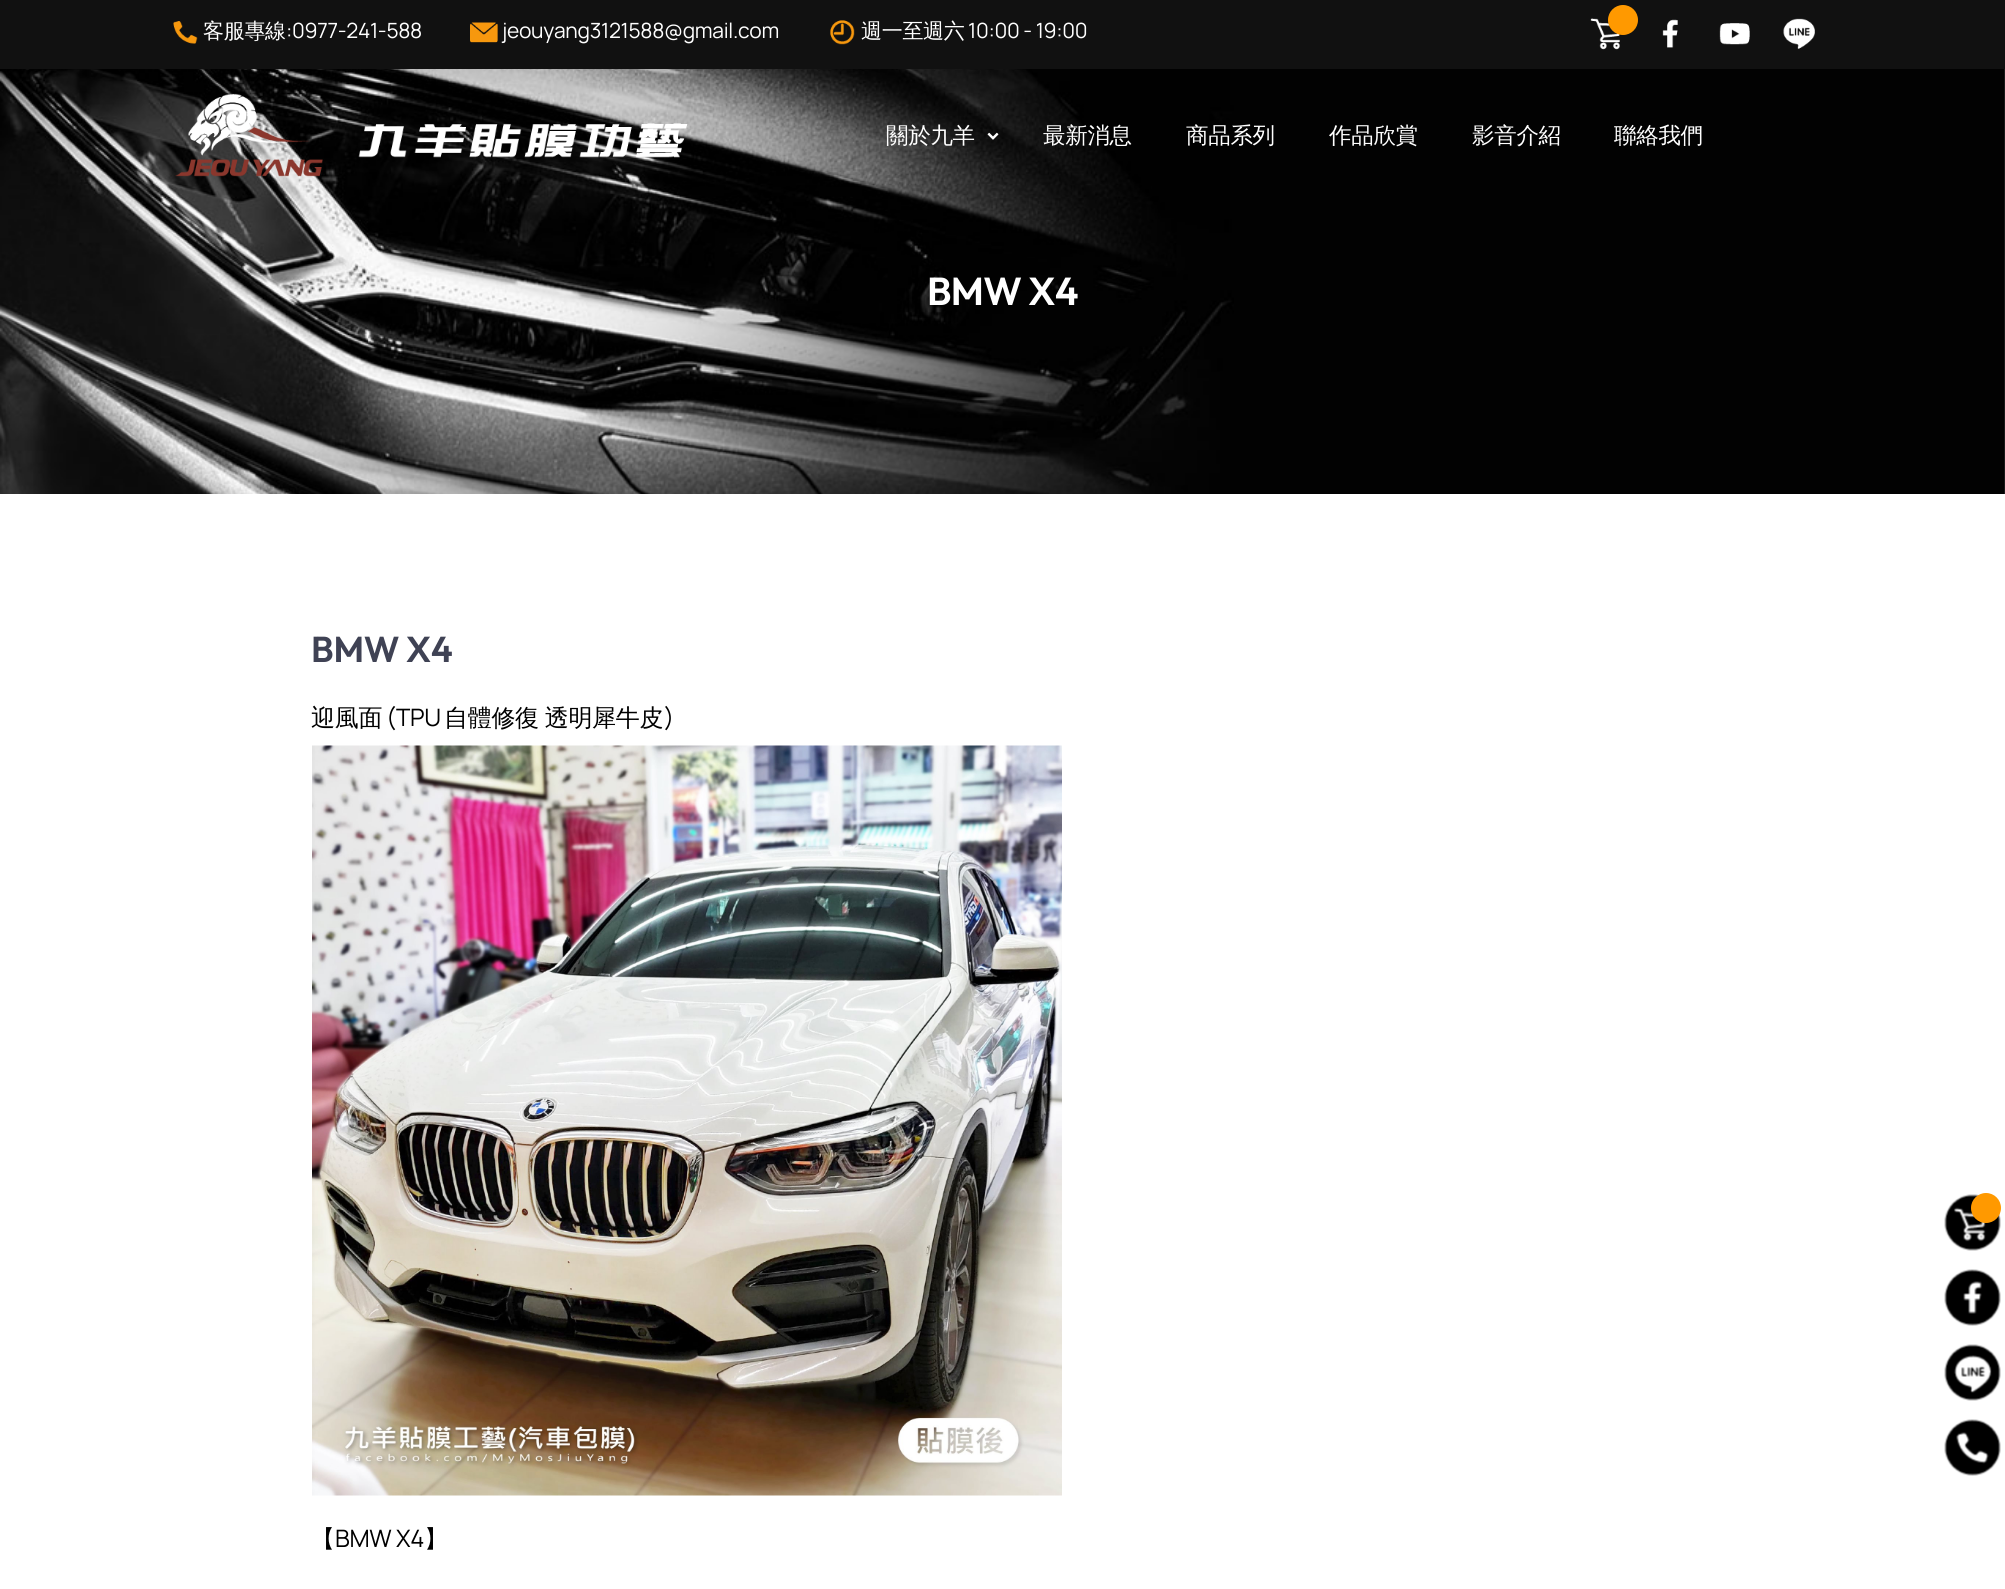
#include <cairo.h>
#include <math.h>
#include <stddef.h>

typedef struct { double x, y; const char *s; } line_t;

static void ink(cairo_t *ctx, unsigned color) {
    cairo_set_source_rgb(ctx, (color >> 16) / 255.0, (color >> 8 & 255) / 255.0, (color & 255) / 255.0);
}

static void write_spaced(cairo_t *ctx, double x, double y, const char *s, double letter, double word) {
    cairo_move_to(ctx, x, y);
    while (*s) {
        char ch[5] = {0};
        int n = 0;
        do ch[n++] = *s++; while ((*s & 0xC0) == 0x80);
        cairo_show_text(ctx, ch);
        cairo_rel_move_to(ctx, letter + word * (*ch == ' '), 0);
    }
}

static void paste(cairo_t *ctx, const char *path, double x, double y, double w, double h) {
    cairo_surface_t *image = cairo_image_surface_create_from_png(path);
    cairo_save(ctx);
    cairo_set_source_surface(ctx, image, x, y);
    cairo_rectangle(ctx, x, y, w, h);
    cairo_fill(ctx);
    cairo_restore(ctx);
    cairo_surface_destroy(image);
}

int main(void) {
    cairo_surface_t *surface = cairo_image_surface_create(CAIRO_FORMAT_RGB24, 2005, 1589);
    cairo_t *ctx = cairo_create(surface);
    cairo_font_options_t *options = cairo_font_options_create();
    cairo_font_options_set_hint_metrics(options, CAIRO_HINT_METRICS_OFF);
    cairo_font_options_set_hint_style(options, CAIRO_HINT_STYLE_NONE);
    cairo_set_font_options(ctx, options);
    cairo_set_miter_limit(ctx, 4);
    ink(ctx, 0xFFFFFF);
    cairo_paint(ctx);
    ink(ctx, 0x111111);
    cairo_rectangle(ctx, 0, 0, 2005, 69);
    cairo_fill(ctx);
    paste(ctx, "media/1.png", 173, 21, 25, 23);
    cairo_select_font_face(ctx, "WenQuanYi Zen Hei Medium", CAIRO_FONT_SLANT_NORMAL, CAIRO_FONT_WEIGHT_NORMAL);
    cairo_set_font_size(ctx, 21);
    ink(ctx, 0xFFFFFF);
    write_spaced(ctx, 203, 38, "客服專線", -0.3, 0);
    cairo_select_font_face(ctx, "Manrope", CAIRO_FONT_SLANT_NORMAL, CAIRO_FONT_WEIGHT_NORMAL);
    write_spaced(ctx, 286, 38, ":0977-241-588", -0.3, 0);
    paste(ctx, "media/2.png", 470, 22, 28, 21);
    write_spaced(ctx, 502, 38, "jeouyang3121588@gmail.com", -0.3, 0);
    paste(ctx, "media/3.png", 830, 20, 25, 25);
    cairo_select_font_face(ctx, "WenQuanYi Zen Hei Medium", CAIRO_FONT_SLANT_NORMAL, CAIRO_FONT_WEIGHT_NORMAL);
    write_spaced(ctx, 861, 38, "週一至週六", -0.3, 0);
    cairo_select_font_face(ctx, "Manrope", CAIRO_FONT_SLANT_NORMAL, CAIRO_FONT_WEIGHT_NORMAL);
    write_spaced(ctx, 968, 38, "10:00 - 19:00", -0.3, 0);
    paste(ctx, "media/4.png", 1590, 18, 30, 32);
    ink(ctx, 0xFF9900);
    cairo_arc(ctx, 1623, 20, 15, 0, 2 * M_PI);
    cairo_fill(ctx);
    paste(ctx, "media/5.png", 1662, 19, 16, 29);
    paste(ctx, "media/6.png", 1719, 23, 31, 22);
    paste(ctx, "media/7.png", 1783, 18, 32, 31);
    paste(ctx, "media/10.png", 0, 69, 2005, 425);
    paste(ctx, "media/8.png", 175, 93, 513, 84);
    cairo_select_font_face(ctx, "WenQuanYi Zen Hei Medium", CAIRO_FONT_SLANT_NORMAL, CAIRO_FONT_WEIGHT_NORMAL);
    cairo_set_font_size(ctx, 22.5);
    ink(ctx, 0xFFFFFF);
    write_spaced(ctx, 886, 143, "關於九羊", -0.3, 0);
    paste(ctx, "media/9.png", 987, 132, 12, 8);
    {
        static const line_t items[] = {
            {1043, 143, "最新消息"},
            {1186, 143, "商品系列"},
            {1329, 143, "作品欣賞"},
            {1472, 143, "影音介紹"},
            {1614, 143, "聯絡我們"},
        };
        for (size_t i = 0; i < sizeof items / sizeof *items; i++) {
            write_spaced(ctx, items[i].x, items[i].y, items[i].s, -0.3, 0);
        }
    }
    cairo_select_font_face(ctx, "Outfit SemiBold", CAIRO_FONT_SLANT_NORMAL, CAIRO_FONT_WEIGHT_NORMAL);
    cairo_set_font_size(ctx, 39);
    write_spaced(ctx, 927, 305, "BMW X4", -0.75, 0);
    cairo_set_font_size(ctx, 36);
    ink(ctx, 0x3F4254);
    write_spaced(ctx, 311, 662, "BMW X4", -0.3, 0);
    cairo_select_font_face(ctx, "WenQuanYi Zen Hei Medium", CAIRO_FONT_SLANT_NORMAL, CAIRO_FONT_WEIGHT_NORMAL);
    cairo_set_font_size(ctx, 24);
    ink(ctx, 0x000000);
    write_spaced(ctx, 311, 726, "迎風面", -0.3, 0);
    cairo_select_font_face(ctx, "Manrope", CAIRO_FONT_SLANT_NORMAL, CAIRO_FONT_WEIGHT_NORMAL);
    write_spaced(ctx, 386, 726, "(TPU", -0.3, 0);
    cairo_select_font_face(ctx, "WenQuanYi Zen Hei Medium", CAIRO_FONT_SLANT_NORMAL, CAIRO_FONT_WEIGHT_NORMAL);
    write_spaced(ctx, 444, 726, "自體修復 透明犀牛皮", -0.3, -1);
    cairo_select_font_face(ctx, "Manrope", CAIRO_FONT_SLANT_NORMAL, CAIRO_FONT_WEIGHT_NORMAL);
    write_spaced(ctx, 664, 726, ")", -0.3, 0);
    paste(ctx, "media/11.png", 312, 745, 750, 751);
    cairo_select_font_face(ctx, "WenQuanYi Zen Hei Medium", CAIRO_FONT_SLANT_NORMAL, CAIRO_FONT_WEIGHT_NORMAL);
    write_spaced(ctx, 311, 1547, "【", -0.3, 0);
    cairo_select_font_face(ctx, "Manrope", CAIRO_FONT_SLANT_NORMAL, CAIRO_FONT_WEIGHT_NORMAL);
    write_spaced(ctx, 335, 1547, "BMW X4", -0.3, 0);
    cairo_select_font_face(ctx, "WenQuanYi Zen Hei Medium", CAIRO_FONT_SLANT_NORMAL, CAIRO_FONT_WEIGHT_NORMAL);
    write_spaced(ctx, 424, 1547, "】", -0.3, 0);
    paste(ctx, "media/12.png", 1944, 1194, 57, 57);
    ink(ctx, 0xFF9900);
    cairo_arc(ctx, 1986, 1208, 15, 0, 2 * M_PI);
    cairo_fill(ctx);
    paste(ctx, "media/13.png", 1944, 1269, 57, 57);
    paste(ctx, "media/14.png", 1944, 1344, 57, 57);
    paste(ctx, "media/15.png", 1944, 1419, 57, 57);
    cairo_surface_write_to_png(surface, "image.png");
    cairo_font_options_destroy(options);
    cairo_destroy(ctx);
    cairo_surface_destroy(surface);
    return 0;
}
